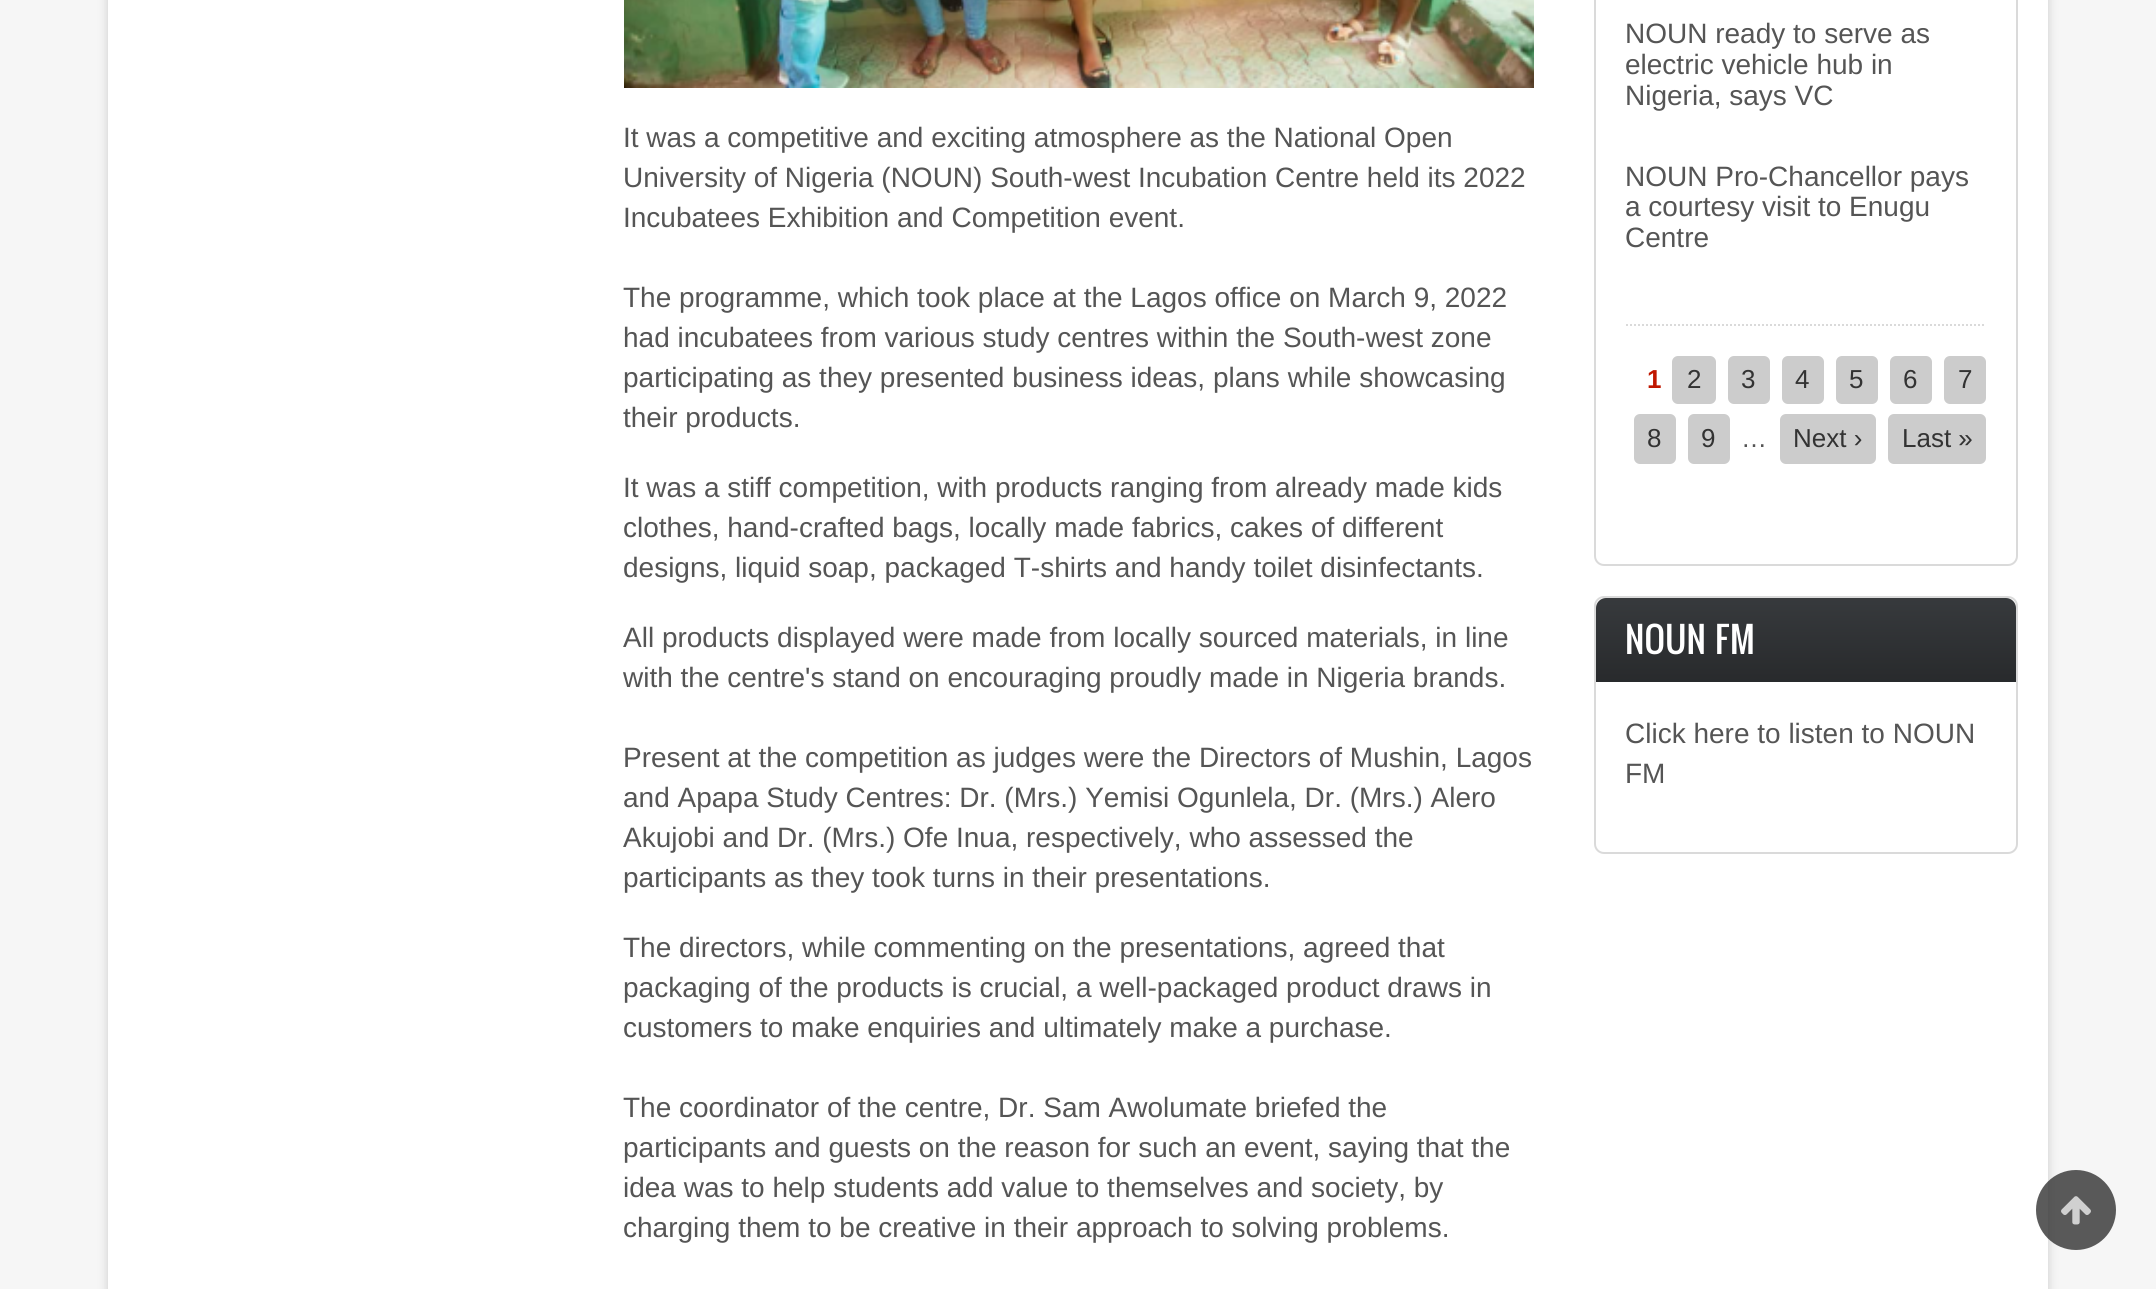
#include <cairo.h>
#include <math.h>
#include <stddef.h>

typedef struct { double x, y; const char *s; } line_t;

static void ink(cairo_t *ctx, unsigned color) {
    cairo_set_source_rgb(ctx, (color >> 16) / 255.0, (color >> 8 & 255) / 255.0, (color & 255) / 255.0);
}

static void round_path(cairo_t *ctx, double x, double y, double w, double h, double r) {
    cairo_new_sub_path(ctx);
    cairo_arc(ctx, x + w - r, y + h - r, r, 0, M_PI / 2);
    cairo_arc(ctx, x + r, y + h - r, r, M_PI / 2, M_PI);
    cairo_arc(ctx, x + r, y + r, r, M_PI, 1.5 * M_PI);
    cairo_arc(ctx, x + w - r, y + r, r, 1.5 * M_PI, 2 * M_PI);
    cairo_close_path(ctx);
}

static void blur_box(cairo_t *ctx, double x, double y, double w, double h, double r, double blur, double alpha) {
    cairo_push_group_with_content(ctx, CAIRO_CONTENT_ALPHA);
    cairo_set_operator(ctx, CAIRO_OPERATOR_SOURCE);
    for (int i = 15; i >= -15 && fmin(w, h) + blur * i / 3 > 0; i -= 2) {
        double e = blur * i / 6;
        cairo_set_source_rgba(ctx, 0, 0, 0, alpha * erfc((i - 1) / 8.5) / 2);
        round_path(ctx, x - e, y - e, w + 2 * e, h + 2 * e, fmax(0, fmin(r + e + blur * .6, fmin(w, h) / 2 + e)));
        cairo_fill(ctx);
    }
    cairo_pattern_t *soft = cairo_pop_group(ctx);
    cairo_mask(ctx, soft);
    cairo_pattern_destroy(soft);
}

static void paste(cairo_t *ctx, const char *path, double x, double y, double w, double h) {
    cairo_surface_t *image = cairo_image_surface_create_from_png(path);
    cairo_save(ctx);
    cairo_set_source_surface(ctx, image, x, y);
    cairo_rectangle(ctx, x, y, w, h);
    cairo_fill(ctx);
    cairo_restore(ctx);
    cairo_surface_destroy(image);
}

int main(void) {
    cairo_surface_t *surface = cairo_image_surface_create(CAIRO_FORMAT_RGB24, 2156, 1289);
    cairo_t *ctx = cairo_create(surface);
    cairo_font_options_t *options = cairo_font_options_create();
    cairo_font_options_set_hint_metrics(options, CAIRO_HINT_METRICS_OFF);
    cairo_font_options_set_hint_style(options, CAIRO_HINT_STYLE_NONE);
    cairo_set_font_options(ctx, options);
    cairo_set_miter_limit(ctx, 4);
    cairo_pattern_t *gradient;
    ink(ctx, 0xF6F6F6);
    cairo_paint(ctx);
    ink(ctx, 0xCCCCCC);
    blur_box(ctx, 108, -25, 1940, 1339, 10, 5, 1);
    ink(ctx, 0xFFFFFF);
    cairo_rectangle(ctx, 108, 0, 1940, 1289);
    cairo_fill(ctx);
    paste(ctx, "media/1.png", 624, 0, 910, 88);
    cairo_select_font_face(ctx, "Liberation Sans", CAIRO_FONT_SLANT_NORMAL, CAIRO_FONT_WEIGHT_NORMAL);
    cairo_set_font_size(ctx, 28);
    ink(ctx, 0x555555);
    {
        static const line_t items[] = {
            {623, 147, "It was a competitive and exciting atmosphere as the National Open"},
            {623, 187, "University of Nigeria (NOUN) South-west Incubation Centre held its 2022"},
            {623, 227, "Incubatees Exhibition and Competition event."},
            {623, 307, "The programme, which took place at the Lagos office on March 9, 2022"},
            {623, 347, "had incubatees from various study centres within the South-west zone"},
            {623, 387, "participating as they presented business ideas, plans while showcasing"},
            {623, 427, "their products."},
            {623, 497, "It was a stiff competition, with products ranging from already made kids"},
            {623, 537, "clothes, hand-crafted bags, locally made fabrics, cakes of different"},
            {623, 577, "designs, liquid soap, packaged T-shirts and handy toilet disinfectants."},
            {623, 647, "All products displayed were made from locally sourced materials, in line"},
            {623, 687, "with the centre's stand on encouraging proudly made in Nigeria brands."},
            {623, 767, "Present at the competition as judges were the Directors of Mushin, Lagos"},
            {623, 807, "and Apapa Study Centres: Dr. (Mrs.) Yemisi Ogunlela, Dr. (Mrs.) Alero"},
            {623, 847, "Akujobi and Dr. (Mrs.) Ofe Inua, respectively, who assessed the"},
            {623, 887, "participants as they took turns in their presentations."},
            {623, 957, "The directors, while commenting on the presentations, agreed that"},
            {623, 997, "packaging of the products is crucial, a well-packaged product draws in"},
            {623, 1037, "customers to make enquiries and ultimately make a purchase."},
            {623, 1117, "The coordinator of the centre, Dr. Sam Awolumate briefed the"},
            {623, 1157, "participants and guests on the reason for such an event, saying that the"},
            {623, 1197, "idea was to help students add value to themselves and society, by"},
            {623, 1237, "charging them to be creative in their approach to solving problems."},
        };
        for (size_t i = 0; i < sizeof items / sizeof *items; i++) {
            cairo_move_to(ctx, items[i].x, items[i].y);
            cairo_show_text(ctx, items[i].s);
        }
    }
    round_path(ctx, 1595, -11, 422, 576, 9);
    ink(ctx, 0xDADADA);
    cairo_stroke(ctx);
    ink(ctx, 0x555555);
    {
        static const line_t items[] = {
            {1625, 43, "NOUN ready to serve as"},
            {1625, 74, "electric vehicle hub in"},
            {1625, 105, "Nigeria, says VC"},
            {1625, 186, "NOUN Pro-Chancellor pays"},
            {1625, 216, "a courtesy visit to Enugu"},
            {1625, 247, "Centre"},
        };
        for (size_t i = 0; i < sizeof items / sizeof *items; i++) {
            cairo_move_to(ctx, items[i].x, items[i].y);
            cairo_show_text(ctx, items[i].s);
        }
    }
    cairo_new_path(ctx);
    cairo_move_to(ctx, 1626, 325);
    cairo_line_to(ctx, 1986, 325);
    ink(ctx, 0xDADADA);
    cairo_set_dash(ctx, (double[]){2, 2}, 2, 0);
    cairo_stroke(ctx);
    cairo_select_font_face(ctx, "Liberation Sans", CAIRO_FONT_SLANT_NORMAL, CAIRO_FONT_WEIGHT_BOLD);
    cairo_set_font_size(ctx, 26);
    ink(ctx, 0xC01700);
    cairo_move_to(ctx, 1647, 388);
    cairo_show_text(ctx, "1");
    ink(ctx, 0xCCCCCC);
    round_path(ctx, 1672, 356, 44, 48, 6);
    cairo_fill(ctx);
    cairo_select_font_face(ctx, "Liberation Sans", CAIRO_FONT_SLANT_NORMAL, CAIRO_FONT_WEIGHT_NORMAL);
    ink(ctx, 0x333333);
    cairo_move_to(ctx, 1687, 388);
    cairo_show_text(ctx, "2");
    ink(ctx, 0xCCCCCC);
    round_path(ctx, 1728, 356, 42, 48, 6);
    cairo_fill(ctx);
    ink(ctx, 0x333333);
    cairo_move_to(ctx, 1741, 388);
    cairo_show_text(ctx, "3");
    ink(ctx, 0xCCCCCC);
    round_path(ctx, 1782, 356, 42, 48, 6);
    cairo_fill(ctx);
    ink(ctx, 0x333333);
    cairo_move_to(ctx, 1795, 388);
    cairo_show_text(ctx, "4");
    ink(ctx, 0xCCCCCC);
    round_path(ctx, 1836, 356, 42, 48, 6);
    cairo_fill(ctx);
    ink(ctx, 0x333333);
    cairo_move_to(ctx, 1849, 388);
    cairo_show_text(ctx, "5");
    ink(ctx, 0xCCCCCC);
    round_path(ctx, 1890, 356, 42, 48, 6);
    cairo_fill(ctx);
    ink(ctx, 0x333333);
    cairo_move_to(ctx, 1903, 388);
    cairo_show_text(ctx, "6");
    ink(ctx, 0xCCCCCC);
    round_path(ctx, 1944, 356, 42, 48, 6);
    cairo_fill(ctx);
    ink(ctx, 0x333333);
    cairo_move_to(ctx, 1958, 388);
    cairo_show_text(ctx, "7");
    ink(ctx, 0xCCCCCC);
    round_path(ctx, 1634, 414, 42, 50, 6);
    cairo_fill(ctx);
    ink(ctx, 0x333333);
    cairo_move_to(ctx, 1647, 447);
    cairo_show_text(ctx, "8");
    ink(ctx, 0xCCCCCC);
    round_path(ctx, 1688, 414, 42, 50, 6);
    cairo_fill(ctx);
    ink(ctx, 0x333333);
    cairo_move_to(ctx, 1701, 447);
    cairo_show_text(ctx, "9");
    ink(ctx, 0x555555);
    cairo_move_to(ctx, 1741, 447);
    cairo_show_text(ctx, "…");
    ink(ctx, 0xCCCCCC);
    round_path(ctx, 1780, 414, 96, 50, 6);
    cairo_fill(ctx);
    ink(ctx, 0x333333);
    cairo_move_to(ctx, 1793, 447);
    cairo_show_text(ctx, "Next ›");
    ink(ctx, 0xCCCCCC);
    round_path(ctx, 1888, 414, 98, 50, 6);
    cairo_fill(ctx);
    ink(ctx, 0x333333);
    cairo_move_to(ctx, 1902, 447);
    cairo_show_text(ctx, "Last »");
    round_path(ctx, 1595, 597, 422, 256, 9);
    ink(ctx, 0xDADADA);
    cairo_set_dash(ctx, NULL, 0, 0);
    cairo_stroke(ctx);
    gradient = cairo_pattern_create_linear(1806, 598, 1806, 682);
    cairo_pattern_add_color_stop_rgba(gradient, 0, 0.216, 0.227, 0.239, 1);
    cairo_pattern_add_color_stop_rgba(gradient, 1, 0.157, 0.165, 0.173, 1);
    cairo_set_source(ctx, gradient);
    cairo_pattern_destroy(gradient);
    cairo_new_path(ctx);
    cairo_move_to(ctx, 1606, 598);
    cairo_line_to(ctx, 2006, 598);
    cairo_curve_to(ctx, 2011.5, 598, 2016, 602.5, 2016, 608);
    cairo_line_to(ctx, 2016, 682);
    cairo_line_to(ctx, 1596, 682);
    cairo_line_to(ctx, 1596, 608);
    cairo_curve_to(ctx, 1596, 602.5, 1600.5, 598, 1606, 598);
    cairo_close_path(ctx);
    cairo_fill(ctx);
    cairo_select_font_face(ctx, "Oswald", CAIRO_FONT_SLANT_NORMAL, CAIRO_FONT_WEIGHT_NORMAL);
    cairo_set_font_size(ctx, 34.5);
    ink(ctx, 0xFFFFFF);
    cairo_move_to(ctx, 1625, 654);
    cairo_show_text(ctx, "NOUN FM");
    cairo_select_font_face(ctx, "Liberation Sans", CAIRO_FONT_SLANT_NORMAL, CAIRO_FONT_WEIGHT_NORMAL);
    cairo_set_font_size(ctx, 28);
    ink(ctx, 0x555555);
    cairo_move_to(ctx, 1625, 743);
    cairo_show_text(ctx, "Click here to listen to NOUN");
    cairo_move_to(ctx, 1625, 783);
    cairo_show_text(ctx, "FM");
    cairo_set_source_rgba(ctx, 0.2, 0.2, 0.2, 0.8);
    cairo_new_path(ctx);
    cairo_arc(ctx, 2076, 1210, 40, 0, 2 * M_PI);
    cairo_fill(ctx);
    paste(ctx, "media/2.png", 2061, 1196, 30, 29);
    cairo_surface_write_to_png(surface, "image.png");
    cairo_font_options_destroy(options);
    cairo_destroy(ctx);
    cairo_surface_destroy(surface);
    return 0;
}
